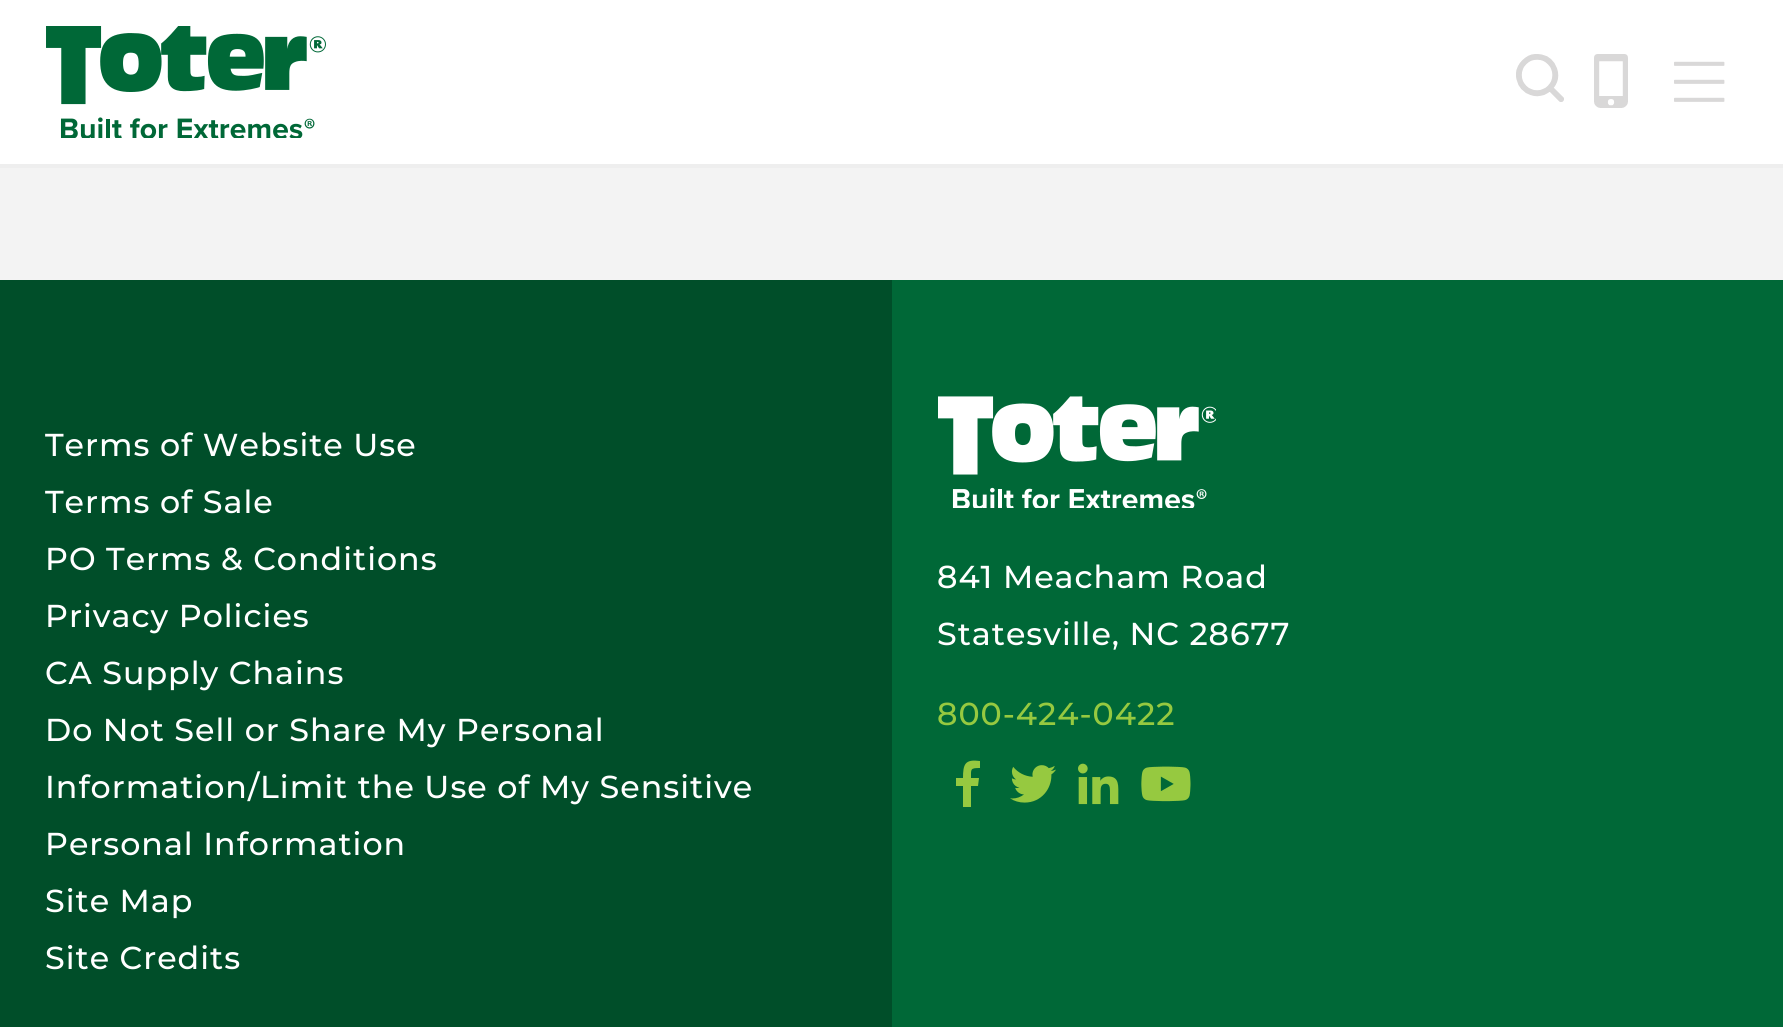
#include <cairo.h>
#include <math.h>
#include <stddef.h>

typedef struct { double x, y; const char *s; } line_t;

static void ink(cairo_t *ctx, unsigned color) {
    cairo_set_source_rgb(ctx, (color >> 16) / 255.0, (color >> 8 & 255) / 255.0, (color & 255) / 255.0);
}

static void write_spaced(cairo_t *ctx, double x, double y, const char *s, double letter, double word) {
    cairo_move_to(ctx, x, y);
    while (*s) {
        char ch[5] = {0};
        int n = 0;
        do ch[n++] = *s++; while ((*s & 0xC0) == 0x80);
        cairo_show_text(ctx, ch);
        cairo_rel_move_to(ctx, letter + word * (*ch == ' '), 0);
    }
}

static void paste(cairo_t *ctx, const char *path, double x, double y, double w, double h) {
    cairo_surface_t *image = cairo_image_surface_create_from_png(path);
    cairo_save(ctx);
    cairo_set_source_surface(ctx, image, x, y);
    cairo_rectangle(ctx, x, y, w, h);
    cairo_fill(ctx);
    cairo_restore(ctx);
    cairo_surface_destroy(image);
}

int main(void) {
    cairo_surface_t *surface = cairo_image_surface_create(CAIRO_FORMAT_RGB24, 1783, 1027);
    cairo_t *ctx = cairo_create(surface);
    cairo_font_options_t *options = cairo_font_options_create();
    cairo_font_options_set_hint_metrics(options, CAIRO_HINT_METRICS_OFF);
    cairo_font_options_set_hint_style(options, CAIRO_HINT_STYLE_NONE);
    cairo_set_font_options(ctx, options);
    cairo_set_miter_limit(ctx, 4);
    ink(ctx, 0xF3F3F3);
    cairo_paint(ctx);
    ink(ctx, 0xFFFFFF);
    cairo_rectangle(ctx, 0, 0, 1783, 164);
    cairo_fill(ctx);
    ink(ctx, 0xEEEEEE);
    cairo_rectangle(ctx, 0, 164, 1783, 4);
    cairo_fill(ctx);
    paste(ctx, "media/1.png", 46, 26, 280, 112);
    paste(ctx, "media/2.png", 1516, 54, 48, 48);
    paste(ctx, "media/3.png", 1594, 54, 34, 54);
    paste(ctx, "media/4.png", 1674, 61, 51, 41);
    ink(ctx, 0x004E29);
    cairo_rectangle(ctx, 0, 280, 892, 747);
    cairo_fill(ctx);
    ink(ctx, 0x006837);
    cairo_rectangle(ctx, 892, 280, 891, 747);
    cairo_fill(ctx);
    cairo_select_font_face(ctx, "Montserrat Medium", CAIRO_FONT_SLANT_NORMAL, CAIRO_FONT_WEIGHT_NORMAL);
    cairo_set_font_size(ctx, 31.7);
    ink(ctx, 0xFFFFFF);
    {
        static const line_t items[] = {
            {45, 456, "Terms of Website Use"},
            {45, 513, "Terms of Sale"},
            {45, 570, "PO Terms & Conditions"},
            {45, 627, "Privacy Policies"},
            {45, 684, "CA Supply Chains"},
            {45, 741, "Do Not Sell or Share My Personal"},
            {45, 798, "Information/Limit the Use of My Sensitive"},
            {45, 855, "Personal Information"},
            {45, 912, "Site Map"},
            {45, 969, "Site Credits"},
        };
        for (size_t i = 0; i < sizeof items / sizeof *items; i++) {
            write_spaced(ctx, items[i].x, items[i].y, items[i].s, 1, 0);
        }
    }
    paste(ctx, "media/5.png", 938, 396, 278, 112);
    write_spaced(ctx, 937, 588, "841 Meacham Road", 1, 0);
    write_spaced(ctx, 937, 645, "Statesville, NC 28677", 1, 0);
    ink(ctx, 0x96C940);
    write_spaced(ctx, 937, 725, "800-424-0422", 1, 0);
    cairo_new_path(ctx);
    cairo_move_to(ctx, 963, 807);
    cairo_line_to(ctx, 963, 786);
    cairo_line_to(ctx, 956, 786);
    cairo_line_to(ctx, 956, 778);
    cairo_line_to(ctx, 963, 778);
    cairo_curve_to(ctx, 963, 764, 965, 759, 980, 761);
    cairo_line_to(ctx, 980, 768);
    cairo_curve_to(ctx, 970, 768, 971, 769, 971, 778);
    cairo_line_to(ctx, 979, 778);
    cairo_line_to(ctx, 978, 786);
    cairo_line_to(ctx, 971, 786);
    cairo_line_to(ctx, 971, 807);
    cairo_close_path(ctx);
    cairo_fill(ctx);
    paste(ctx, "media/6.png", 1010, 765, 46, 38);
    paste(ctx, "media/7.png", 1078, 763, 41, 42);
    paste(ctx, "media/8.png", 1141, 766, 50, 36);
    cairo_surface_write_to_png(surface, "image.png");
    cairo_font_options_destroy(options);
    cairo_destroy(ctx);
    cairo_surface_destroy(surface);
    return 0;
}
